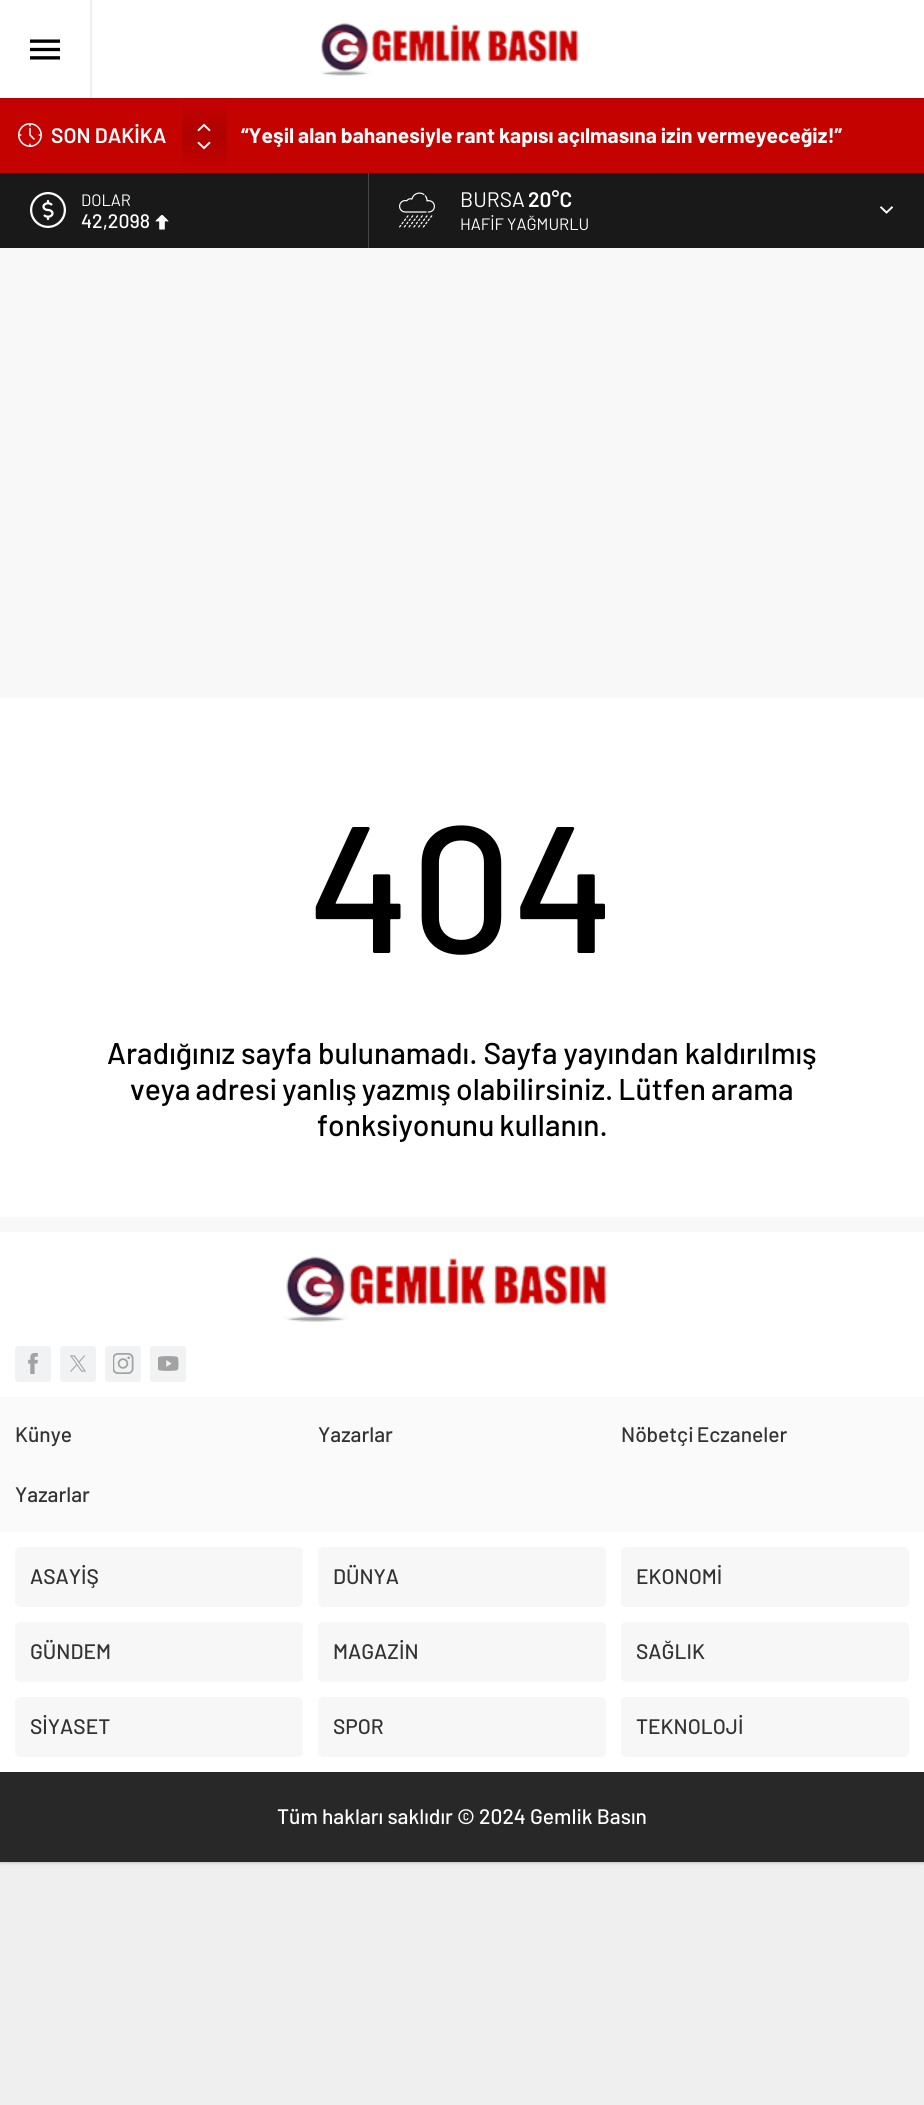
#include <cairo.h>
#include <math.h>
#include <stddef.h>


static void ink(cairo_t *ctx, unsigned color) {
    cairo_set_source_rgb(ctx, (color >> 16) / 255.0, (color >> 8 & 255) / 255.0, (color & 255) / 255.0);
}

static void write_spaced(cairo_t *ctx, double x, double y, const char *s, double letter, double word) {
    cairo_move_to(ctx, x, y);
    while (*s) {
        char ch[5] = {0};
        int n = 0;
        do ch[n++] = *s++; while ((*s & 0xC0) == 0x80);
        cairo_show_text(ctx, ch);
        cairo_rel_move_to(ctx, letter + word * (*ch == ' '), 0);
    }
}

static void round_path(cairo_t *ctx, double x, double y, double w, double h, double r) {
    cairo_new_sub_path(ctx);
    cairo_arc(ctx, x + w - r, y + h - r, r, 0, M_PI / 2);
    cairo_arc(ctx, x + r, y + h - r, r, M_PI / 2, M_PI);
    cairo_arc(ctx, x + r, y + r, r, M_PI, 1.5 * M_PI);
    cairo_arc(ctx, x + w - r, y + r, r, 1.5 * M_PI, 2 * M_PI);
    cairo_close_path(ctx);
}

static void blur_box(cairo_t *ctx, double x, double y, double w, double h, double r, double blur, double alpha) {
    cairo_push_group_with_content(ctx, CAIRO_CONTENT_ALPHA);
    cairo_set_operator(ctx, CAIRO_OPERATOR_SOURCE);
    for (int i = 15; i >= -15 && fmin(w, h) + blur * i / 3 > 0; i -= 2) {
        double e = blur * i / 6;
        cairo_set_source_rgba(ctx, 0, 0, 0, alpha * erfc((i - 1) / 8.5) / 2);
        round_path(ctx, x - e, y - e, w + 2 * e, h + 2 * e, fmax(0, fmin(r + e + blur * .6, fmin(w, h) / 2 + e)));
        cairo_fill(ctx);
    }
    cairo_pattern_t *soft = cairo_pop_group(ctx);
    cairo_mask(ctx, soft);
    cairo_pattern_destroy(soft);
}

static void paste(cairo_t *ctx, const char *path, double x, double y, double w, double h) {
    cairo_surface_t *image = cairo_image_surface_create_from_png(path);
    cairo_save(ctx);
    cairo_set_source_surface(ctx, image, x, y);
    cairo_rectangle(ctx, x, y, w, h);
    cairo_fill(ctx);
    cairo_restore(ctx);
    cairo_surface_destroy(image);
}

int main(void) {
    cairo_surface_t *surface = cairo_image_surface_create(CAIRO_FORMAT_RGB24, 924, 2105);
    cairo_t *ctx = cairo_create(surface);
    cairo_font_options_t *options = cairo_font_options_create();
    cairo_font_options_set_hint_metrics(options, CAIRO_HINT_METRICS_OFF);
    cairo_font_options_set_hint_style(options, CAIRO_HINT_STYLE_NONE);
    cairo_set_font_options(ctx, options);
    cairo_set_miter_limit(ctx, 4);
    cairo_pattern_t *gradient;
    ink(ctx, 0xEFEFEF);
    cairo_paint(ctx);
    ink(ctx, 0x000000);
    blur_box(ctx, 0, 98, 924, 1764, 0, 2, 0.3);
    ink(ctx, 0xF8F8F8);
    cairo_rectangle(ctx, 0, 248, 924, 984);
    cairo_fill(ctx);
    ink(ctx, 0xC40200);
    cairo_rectangle(ctx, 0, 98, 924, 75);
    cairo_fill(ctx);
    gradient = cairo_pattern_create_linear(204, 98, 204, 173);
    cairo_pattern_add_color_stop_rgba(gradient, 0, 0.769, 0.008, 0, 1);
    cairo_pattern_add_color_stop_rgba(gradient, 0.5, 0.69, 0.008, 0, 1);
    cairo_pattern_add_color_stop_rgba(gradient, 1, 0.769, 0.008, 0, 1);
    cairo_set_source(ctx, gradient);
    cairo_pattern_destroy(gradient);
    cairo_rectangle(ctx, 182, 103, 45, 65);
    cairo_fill(ctx);
    ink(ctx, 0x000000);
    blur_box(ctx, 0, 0, 924, 98, 0, 2, 0.15);
    ink(ctx, 0xFFFFFF);
    cairo_rectangle(ctx, 0, 0, 924, 98);
    cairo_fill(ctx);
    ink(ctx, 0xEEEEEE);
    cairo_rectangle(ctx, 90, 0, 2, 98);
    cairo_fill(ctx);
    paste(ctx, "media/1.png", 30, 39, 30, 21);
    paste(ctx, "media/2.png", 319, 23, 260, 54);
    paste(ctx, "media/3.png", 18, 123, 24, 24);
    cairo_select_font_face(ctx, "Barlow SemiBold", CAIRO_FONT_SLANT_NORMAL, CAIRO_FONT_WEIGHT_NORMAL);
    cairo_set_font_size(ctx, 21);
    ink(ctx, 0xFFFFFF);
    cairo_move_to(ctx, 51, 143);
    cairo_show_text(ctx, "SON DAKİKA");
    paste(ctx, "media/4.png", 197, 123, 14, 9);
    paste(ctx, "media/5.png", 197, 141, 14, 9);
    cairo_select_font_face(ctx, "Barlow", CAIRO_FONT_SLANT_NORMAL, CAIRO_FONT_WEIGHT_BOLD);
    write_spaced(ctx, 241, 143, "“Yeşil alan bahanesiyle rant kapısı açılmasına izin vermeyeceğiz!”", 0, -0.25);
    ink(ctx, 0x191919);
    cairo_rectangle(ctx, 0, 173, 924, 75);
    cairo_fill(ctx);
    cairo_set_source_rgba(ctx, 1, 1, 1, 0.2);
    cairo_rectangle(ctx, 368, 173, 1, 75);
    cairo_fill(ctx);
    paste(ctx, "media/6.png", 30, 192, 36, 36);
    cairo_select_font_face(ctx, "Barlow", CAIRO_FONT_SLANT_NORMAL, CAIRO_FONT_WEIGHT_NORMAL);
    cairo_set_font_size(ctx, 16.5);
    ink(ctx, 0xFFFFFF);
    cairo_move_to(ctx, 81, 206);
    cairo_show_text(ctx, "DOLAR");
    cairo_select_font_face(ctx, "Barlow Medium", CAIRO_FONT_SLANT_NORMAL, CAIRO_FONT_WEIGHT_NORMAL);
    cairo_set_font_size(ctx, 19.5);
    cairo_move_to(ctx, 81, 228);
    cairo_show_text(ctx, "42,2098");
    paste(ctx, "media/7.png", 155, 215, 14, 15);
    paste(ctx, "media/8.png", 399, 192, 36, 36);
    cairo_select_font_face(ctx, "Barlow", CAIRO_FONT_SLANT_NORMAL, CAIRO_FONT_WEIGHT_NORMAL);
    cairo_set_font_size(ctx, 21);
    cairo_move_to(ctx, 460, 207);
    cairo_show_text(ctx, "BURSA");
    cairo_select_font_face(ctx, "Barlow SemiBold", CAIRO_FONT_SLANT_NORMAL, CAIRO_FONT_WEIGHT_NORMAL);
    cairo_move_to(ctx, 528, 207);
    cairo_show_text(ctx, "20°C");
    cairo_select_font_face(ctx, "Barlow", CAIRO_FONT_SLANT_NORMAL, CAIRO_FONT_WEIGHT_NORMAL);
    cairo_set_font_size(ctx, 16.5);
    cairo_move_to(ctx, 460, 230);
    cairo_show_text(ctx, "HAFİF YAĞMURLU");
    paste(ctx, "media/9.png", 880, 206, 13, 8);
    cairo_rectangle(ctx, 0, 698, 924, 519);
    cairo_fill(ctx);
    cairo_select_font_face(ctx, "Barlow Medium", CAIRO_FONT_SLANT_NORMAL, CAIRO_FONT_WEIGHT_NORMAL);
    cairo_set_font_size(ctx, 180);
    ink(ctx, 0x000000);
    cairo_move_to(ctx, 308, 953);
    cairo_show_text(ctx, "404");
    cairo_set_font_size(ctx, 30);
    cairo_move_to(ctx, 107, 1064);
    cairo_show_text(ctx, "Aradığınız sayfa bulunamadı. Sayfa yayından kaldırılmış");
    write_spaced(ctx, 130, 1100, "veya adresi yanlış yazmış olabilirsiniz. Lütfen arama", 0, -1);
    write_spaced(ctx, 317, 1136, "fonksiyonunu kullanın.", 0, -1);
    ink(ctx, 0xFFFFFF);
    cairo_rectangle(ctx, 0, 1232, 924, 540);
    cairo_fill(ctx);
    paste(ctx, "media/10.png", 282, 1256, 325, 66);
    ink(ctx, 0xF1F2F3);
    round_path(ctx, 15, 1346, 36, 36, 3);
    cairo_fill(ctx);
    paste(ctx, "media/11.png", 28, 1353, 10, 21);
    round_path(ctx, 60, 1346, 36, 36, 3);
    cairo_fill(ctx);
    paste(ctx, "media/12.png", 70, 1355, 16, 17);
    round_path(ctx, 105, 1346, 36, 36, 3);
    cairo_fill(ctx);
    paste(ctx, "media/13.png", 113, 1353, 21, 21);
    round_path(ctx, 150, 1346, 36, 36, 3);
    cairo_fill(ctx);
    paste(ctx, "media/14.png", 158, 1356, 21, 15);
    ink(ctx, 0xFAFAFA);
    cairo_rectangle(ctx, 0, 1397, 924, 135);
    cairo_fill(ctx);
    cairo_set_font_size(ctx, 21);
    ink(ctx, 0x333333);
    cairo_move_to(ctx, 15, 1442);
    cairo_show_text(ctx, "Künye");
    cairo_move_to(ctx, 318, 1442);
    cairo_show_text(ctx, "Yazarlar");
    write_spaced(ctx, 621, 1442, "Nöbetçi Eczaneler", 0, -1);
    cairo_move_to(ctx, 15, 1502);
    cairo_show_text(ctx, "Yazarlar");
    ink(ctx, 0xF7F7F7);
    round_path(ctx, 15, 1547, 288, 60, 5);
    cairo_fill(ctx);
    ink(ctx, 0x333333);
    cairo_move_to(ctx, 30, 1584);
    cairo_show_text(ctx, "ASAYİŞ");
    ink(ctx, 0xF7F7F7);
    round_path(ctx, 318, 1547, 288, 60, 5);
    cairo_fill(ctx);
    ink(ctx, 0x333333);
    cairo_move_to(ctx, 333, 1584);
    cairo_show_text(ctx, "DÜNYA");
    ink(ctx, 0xF7F7F7);
    round_path(ctx, 621, 1547, 288, 60, 5);
    cairo_fill(ctx);
    ink(ctx, 0x333333);
    cairo_move_to(ctx, 636, 1584);
    cairo_show_text(ctx, "EKONOMİ");
    ink(ctx, 0xF7F7F7);
    round_path(ctx, 15, 1622, 288, 60, 5);
    cairo_fill(ctx);
    ink(ctx, 0x333333);
    cairo_move_to(ctx, 30, 1659);
    cairo_show_text(ctx, "GÜNDEM");
    ink(ctx, 0xF7F7F7);
    round_path(ctx, 318, 1622, 288, 60, 5);
    cairo_fill(ctx);
    ink(ctx, 0x333333);
    cairo_move_to(ctx, 333, 1659);
    cairo_show_text(ctx, "MAGAZİN");
    ink(ctx, 0xF7F7F7);
    round_path(ctx, 621, 1622, 288, 60, 5);
    cairo_fill(ctx);
    ink(ctx, 0x333333);
    cairo_move_to(ctx, 636, 1659);
    cairo_show_text(ctx, "SAĞLIK");
    ink(ctx, 0xF7F7F7);
    round_path(ctx, 15, 1697, 288, 60, 5);
    cairo_fill(ctx);
    ink(ctx, 0x333333);
    cairo_move_to(ctx, 30, 1734);
    cairo_show_text(ctx, "SİYASET");
    ink(ctx, 0xF7F7F7);
    round_path(ctx, 318, 1697, 288, 60, 5);
    cairo_fill(ctx);
    ink(ctx, 0x333333);
    cairo_move_to(ctx, 333, 1734);
    cairo_show_text(ctx, "SPOR");
    ink(ctx, 0xF7F7F7);
    round_path(ctx, 621, 1697, 288, 60, 5);
    cairo_fill(ctx);
    ink(ctx, 0x333333);
    cairo_move_to(ctx, 636, 1734);
    cairo_show_text(ctx, "TEKNOLOJİ");
    ink(ctx, 0x282828);
    cairo_rectangle(ctx, 0, 1772, 924, 90);
    cairo_fill(ctx);
    ink(ctx, 0xFFFFFF);
    cairo_move_to(ctx, 277, 1824);
    cairo_show_text(ctx, "Tüm hakları saklıdır © 2024 Gemlik Basın");
    cairo_surface_write_to_png(surface, "image.png");
    cairo_font_options_destroy(options);
    cairo_destroy(ctx);
    cairo_surface_destroy(surface);
    return 0;
}
